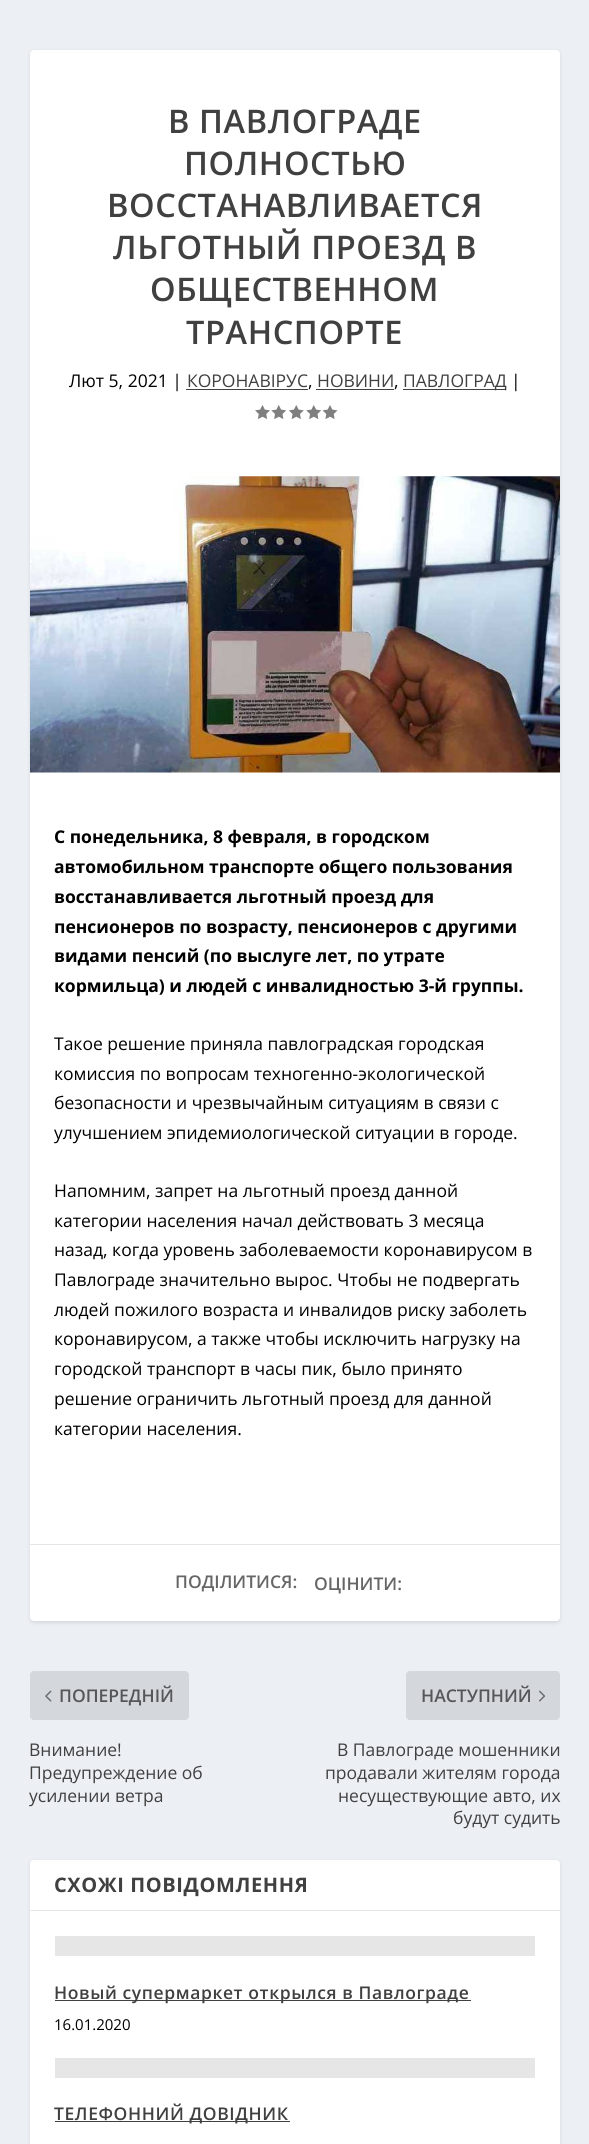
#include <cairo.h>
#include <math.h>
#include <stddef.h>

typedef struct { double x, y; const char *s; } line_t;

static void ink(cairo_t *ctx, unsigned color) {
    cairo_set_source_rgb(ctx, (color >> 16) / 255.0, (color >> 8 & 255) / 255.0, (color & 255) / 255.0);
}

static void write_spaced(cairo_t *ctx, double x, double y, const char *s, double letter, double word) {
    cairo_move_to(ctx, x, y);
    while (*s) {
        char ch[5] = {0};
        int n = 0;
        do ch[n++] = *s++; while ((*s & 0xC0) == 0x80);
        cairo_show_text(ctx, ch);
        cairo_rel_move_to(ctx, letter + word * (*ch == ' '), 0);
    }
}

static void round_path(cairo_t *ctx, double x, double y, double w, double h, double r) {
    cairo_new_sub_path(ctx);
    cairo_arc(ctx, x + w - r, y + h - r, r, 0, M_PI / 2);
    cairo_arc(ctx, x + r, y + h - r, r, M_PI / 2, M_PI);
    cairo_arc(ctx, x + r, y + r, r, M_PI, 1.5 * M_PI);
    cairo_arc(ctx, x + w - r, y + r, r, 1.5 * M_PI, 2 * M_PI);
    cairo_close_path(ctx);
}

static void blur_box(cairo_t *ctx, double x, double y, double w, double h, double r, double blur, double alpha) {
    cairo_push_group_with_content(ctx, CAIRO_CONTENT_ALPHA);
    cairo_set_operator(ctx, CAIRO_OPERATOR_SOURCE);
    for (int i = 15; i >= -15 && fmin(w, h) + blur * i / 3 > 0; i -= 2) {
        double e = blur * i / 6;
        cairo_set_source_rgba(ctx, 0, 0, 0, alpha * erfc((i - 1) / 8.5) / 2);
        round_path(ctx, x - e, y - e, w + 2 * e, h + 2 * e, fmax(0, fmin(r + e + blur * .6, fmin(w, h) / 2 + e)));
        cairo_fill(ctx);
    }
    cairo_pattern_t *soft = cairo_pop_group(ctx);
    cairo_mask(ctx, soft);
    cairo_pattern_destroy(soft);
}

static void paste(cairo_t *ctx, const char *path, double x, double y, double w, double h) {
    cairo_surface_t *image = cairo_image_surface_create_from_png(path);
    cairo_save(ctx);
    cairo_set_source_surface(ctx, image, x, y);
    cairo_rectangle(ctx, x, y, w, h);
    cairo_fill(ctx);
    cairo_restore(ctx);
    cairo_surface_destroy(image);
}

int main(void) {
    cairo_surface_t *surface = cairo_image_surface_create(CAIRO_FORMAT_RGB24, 589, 2144);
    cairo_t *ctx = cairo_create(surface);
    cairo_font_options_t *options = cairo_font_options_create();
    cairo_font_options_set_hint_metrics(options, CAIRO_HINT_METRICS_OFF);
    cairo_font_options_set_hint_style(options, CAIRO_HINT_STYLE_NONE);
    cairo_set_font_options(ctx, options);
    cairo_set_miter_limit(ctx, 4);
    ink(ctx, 0xECF0F5);
    cairo_paint(ctx);
    ink(ctx, 0x000000);
    blur_box(ctx, 30, 51, 530, 1572, 4, 2, 0.1);
    ink(ctx, 0xFFFFFF);
    round_path(ctx, 30, 50, 530, 1571, 4);
    cairo_fill(ctx);
    cairo_select_font_face(ctx, "Open Sans SemiBold", CAIRO_FONT_SLANT_NORMAL, CAIRO_FONT_WEIGHT_NORMAL);
    cairo_set_font_size(ctx, 32.5);
    ink(ctx, 0x404040);
    {
        static const line_t items[] = {
            {168, 133, "В ПАВЛОГРАДЕ"},
            {184, 175, "ПОЛНОСТЬЮ"},
            {107, 217, "ВОССТАНАВЛИВАЕТСЯ"},
            {113, 259, "ЛЬГОТНЫЙ ПРОЕЗД В"},
            {150, 301, "ОБЩЕСТВЕННОМ"},
            {186, 344, "ТРАНСПОРТЕ"},
        };
        for (size_t i = 0; i < sizeof items / sizeof *items; i++) {
            write_spaced(ctx, items[i].x, items[i].y, items[i].s, 0.6, 0);
        }
    }
    cairo_select_font_face(ctx, "Open Sans", CAIRO_FONT_SLANT_NORMAL, CAIRO_FONT_WEIGHT_NORMAL);
    cairo_set_font_size(ctx, 17.5);
    ink(ctx, 0x000000);
    cairo_move_to(ctx, 69, 387);
    cairo_show_text(ctx, "Лют 5, 2021 |");
    ink(ctx, 0x404040);
    cairo_move_to(ctx, 187, 387);
    cairo_show_text(ctx, "КОРОНАВІРУС");
    cairo_rectangle(ctx, 186, 389, 122, 1);
    cairo_fill(ctx);
    ink(ctx, 0x000000);
    cairo_move_to(ctx, 308, 387);
    cairo_show_text(ctx, ",");
    ink(ctx, 0x404040);
    cairo_move_to(ctx, 317, 387);
    cairo_show_text(ctx, "НОВИНИ");
    cairo_rectangle(ctx, 316, 389, 78, 1);
    cairo_fill(ctx);
    ink(ctx, 0x000000);
    cairo_move_to(ctx, 394, 387);
    cairo_show_text(ctx, ",");
    ink(ctx, 0x404040);
    cairo_rectangle(ctx, 403, 389, 103, 1);
    cairo_fill(ctx);
    cairo_move_to(ctx, 403, 387);
    cairo_show_text(ctx, "ПАВЛОГРАД");
    ink(ctx, 0x000000);
    cairo_move_to(ctx, 511, 387);
    cairo_show_text(ctx, "|");
    paste(ctx, "media/1.png", 255, 405, 15, 14);
    paste(ctx, "media/2.png", 271, 405, 15, 14);
    paste(ctx, "media/3.png", 289, 405, 15, 14);
    paste(ctx, "media/2.png", 306, 405, 15, 14);
    paste(ctx, "media/4.png", 322, 405, 16, 14);
    paste(ctx, "media/5.png", 30, 476, 530, 297);
    cairo_select_font_face(ctx, "Open Sans", CAIRO_FONT_SLANT_NORMAL, CAIRO_FONT_WEIGHT_BOLD);
    {
        static const line_t items[] = {
            {54, 843, "С понедельника, 8 февраля, в городском"},
            {54, 873, "автомобильном транспорте общего пользования"},
            {54, 903, "восстанавливается льготный проезд для"},
            {54, 933, "пенсионеров по возрасту, пенсионеров с другими"},
            {54, 962, "видами пенсий (по выслуге лет, по утрате"},
            {54, 992, "кормильца) и людей с инвалидностью 3-й группы."},
        };
        for (size_t i = 0; i < sizeof items / sizeof *items; i++) {
            cairo_move_to(ctx, items[i].x, items[i].y);
            cairo_show_text(ctx, items[i].s);
        }
    }
    cairo_select_font_face(ctx, "Open Sans", CAIRO_FONT_SLANT_NORMAL, CAIRO_FONT_WEIGHT_NORMAL);
    {
        static const line_t items[] = {
            {54, 1050, "Такое решение приняла павлоградская городская"},
            {54, 1080, "комиссия по вопросам техногенно-экологической"},
            {54, 1109, "безопасности и чрезвычайным ситуациям в связи с"},
            {54, 1139, "улучшением эпидемиологической ситуации в городе."},
            {54, 1197, "Напомним, запрет на льготный проезд данной"},
            {54, 1227, "категории населения начал действовать 3 месяца"},
            {54, 1256, "назад, когда уровень заболеваемости коронавирусом в"},
            {54, 1286, "Павлограде значительно вырос. Чтобы не подвергать"},
            {54, 1316, "людей пожилого возраста и инвалидов риску заболеть"},
            {54, 1345, "коронавирусом, а также чтобы исключить нагрузку на"},
            {54, 1375, "городской транспорт в часы пик, было принято"},
            {54, 1405, "решение ограничить льготный проезд для данной"},
            {54, 1435, "категории населения."},
        };
        for (size_t i = 0; i < sizeof items / sizeof *items; i++) {
            cairo_move_to(ctx, items[i].x, items[i].y);
            cairo_show_text(ctx, items[i].s);
        }
    }
    ink(ctx, 0xE6E6E6);
    cairo_rectangle(ctx, 30, 1544, 530, 1);
    cairo_fill(ctx);
    cairo_select_font_face(ctx, "Open Sans SemiBold", CAIRO_FONT_SLANT_NORMAL, CAIRO_FONT_WEIGHT_NORMAL);
    ink(ctx, 0x666666);
    cairo_move_to(ctx, 175, 1588);
    cairo_show_text(ctx, "ПОДІЛИТИСЯ:");
    cairo_move_to(ctx, 314, 1590);
    cairo_show_text(ctx, "ОЦІНИТИ:");
    ink(ctx, 0xD4D8DD);
    round_path(ctx, 30, 1671, 159, 49, 4);
    cairo_fill(ctx);
    paste(ctx, "media/6.png", 45, 1690, 7, 12);
    ink(ctx, 0x555658);
    cairo_move_to(ctx, 59, 1702);
    cairo_show_text(ctx, "ПОПЕРЕДНІЙ");
    cairo_select_font_face(ctx, "Open Sans", CAIRO_FONT_SLANT_NORMAL, CAIRO_FONT_WEIGHT_NORMAL);
    ink(ctx, 0x404040);
    {
        static const line_t items[] = {
            {29, 1756, "Внимание!"},
            {29, 1779, "Предупреждение об"},
            {29, 1802, "усилении ветра"},
        };
        for (size_t i = 0; i < sizeof items / sizeof *items; i++) {
            cairo_move_to(ctx, items[i].x, items[i].y);
            cairo_show_text(ctx, items[i].s);
        }
    }
    ink(ctx, 0xD4D8DD);
    round_path(ctx, 406, 1671, 154, 49, 4);
    cairo_fill(ctx);
    cairo_select_font_face(ctx, "Open Sans SemiBold", CAIRO_FONT_SLANT_NORMAL, CAIRO_FONT_WEIGHT_NORMAL);
    ink(ctx, 0x555658);
    cairo_move_to(ctx, 421, 1702);
    cairo_show_text(ctx, "НАСТУПНИЙ");
    paste(ctx, "media/7.png", 539, 1690, 7, 12);
    cairo_select_font_face(ctx, "Open Sans", CAIRO_FONT_SLANT_NORMAL, CAIRO_FONT_WEIGHT_NORMAL);
    ink(ctx, 0x404040);
    {
        static const line_t items[] = {
            {337, 1756, "В Павлограде мошенники"},
            {325, 1779, "продавали жителям города"},
            {338, 1802, "несуществующие авто, их"},
            {453, 1824, "будут судить"},
        };
        for (size_t i = 0; i < sizeof items / sizeof *items; i++) {
            cairo_move_to(ctx, items[i].x, items[i].y);
            cairo_show_text(ctx, items[i].s);
        }
    }
    ink(ctx, 0x000000);
    blur_box(ctx, 30, 1861, 530, 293, 4, 2, 0.1);
    ink(ctx, 0xFFFFFF);
    round_path(ctx, 30, 1860, 530, 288, 4);
    cairo_fill(ctx);
    ink(ctx, 0xE6E6E6);
    cairo_rectangle(ctx, 30, 1910, 530, 1);
    cairo_fill(ctx);
    cairo_select_font_face(ctx, "Open Sans", CAIRO_FONT_SLANT_NORMAL, CAIRO_FONT_WEIGHT_BOLD);
    cairo_set_font_size(ctx, 20);
    ink(ctx, 0x404040);
    write_spaced(ctx, 54, 1892, "СХОЖІ ПОВІДОМЛЕННЯ", 0.6, 0);
    ink(ctx, 0xE6E6E6);
    cairo_rectangle(ctx, 55, 1936, 480, 20);
    cairo_fill(ctx);
    ink(ctx, 0x404040);
    cairo_rectangle(ctx, 55, 2000, 416, 1);
    cairo_fill(ctx);
    cairo_select_font_face(ctx, "Open Sans SemiBold", CAIRO_FONT_SLANT_NORMAL, CAIRO_FONT_WEIGHT_NORMAL);
    cairo_set_font_size(ctx, 17.5);
    write_spaced(ctx, 54, 1999, "Новый супермаркет открылся в Павлограде", 0.6, 0);
    cairo_select_font_face(ctx, "Open Sans", CAIRO_FONT_SLANT_NORMAL, CAIRO_FONT_WEIGHT_NORMAL);
    cairo_set_font_size(ctx, 15);
    ink(ctx, 0x000000);
    cairo_move_to(ctx, 54, 2030);
    cairo_show_text(ctx, "16.01.2020");
    ink(ctx, 0xE6E6E6);
    cairo_rectangle(ctx, 55, 2058, 480, 20);
    cairo_fill(ctx);
    ink(ctx, 0x404040);
    cairo_rectangle(ctx, 55, 2121, 235, 1);
    cairo_fill(ctx);
    cairo_select_font_face(ctx, "Open Sans SemiBold", CAIRO_FONT_SLANT_NORMAL, CAIRO_FONT_WEIGHT_NORMAL);
    cairo_set_font_size(ctx, 17.5);
    write_spaced(ctx, 54, 2120, "ТЕЛЕФОННИЙ ДОВІДНИК", 0.6, 0);
    cairo_surface_write_to_png(surface, "image.png");
    cairo_font_options_destroy(options);
    cairo_destroy(ctx);
    cairo_surface_destroy(surface);
    return 0;
}
